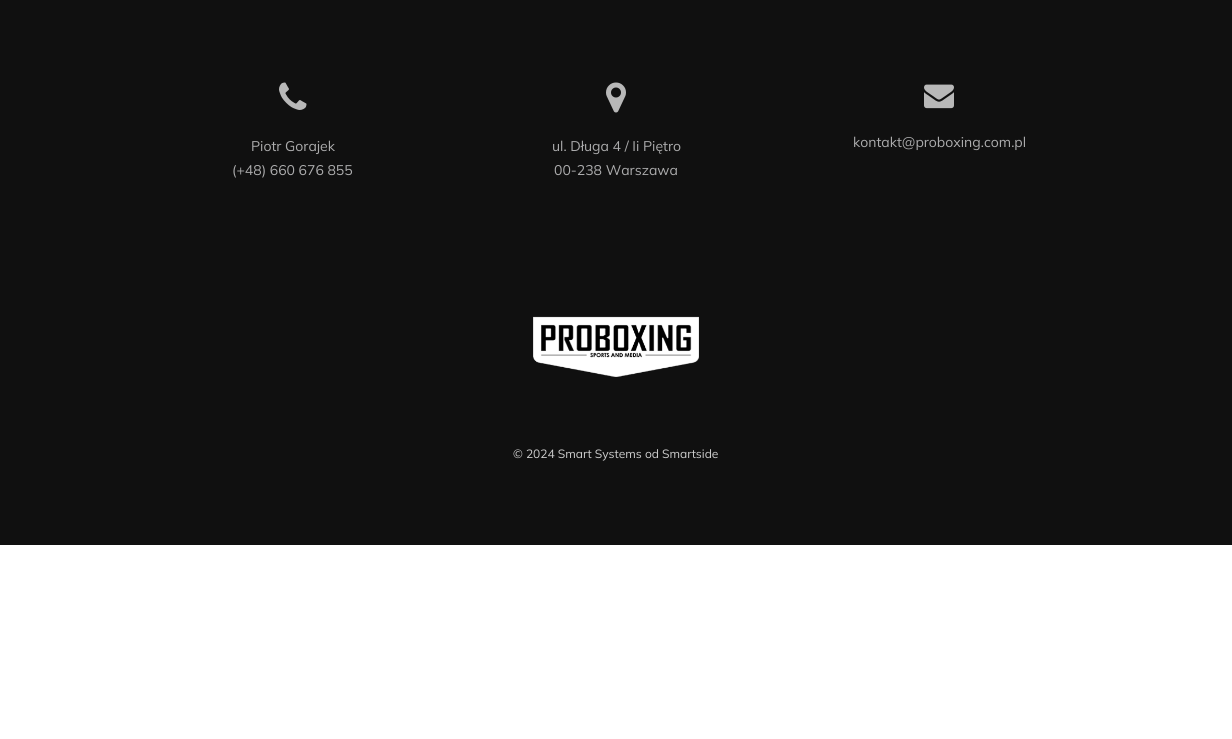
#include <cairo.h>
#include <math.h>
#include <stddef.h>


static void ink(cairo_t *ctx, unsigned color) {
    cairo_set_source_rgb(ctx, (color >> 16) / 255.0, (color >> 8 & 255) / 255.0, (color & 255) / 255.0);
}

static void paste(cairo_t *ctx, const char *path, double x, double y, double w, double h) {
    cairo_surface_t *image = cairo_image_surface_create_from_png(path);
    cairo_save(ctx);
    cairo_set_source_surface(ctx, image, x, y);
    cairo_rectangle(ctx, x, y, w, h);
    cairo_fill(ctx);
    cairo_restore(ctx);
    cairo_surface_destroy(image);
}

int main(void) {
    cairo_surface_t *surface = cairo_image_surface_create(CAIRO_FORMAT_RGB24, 1232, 739);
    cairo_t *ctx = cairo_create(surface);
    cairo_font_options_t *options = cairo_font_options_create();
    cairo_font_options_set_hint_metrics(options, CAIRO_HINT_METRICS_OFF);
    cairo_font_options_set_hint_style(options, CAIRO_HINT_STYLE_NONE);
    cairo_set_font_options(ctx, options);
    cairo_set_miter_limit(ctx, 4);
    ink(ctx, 0xFFFFFF);
    cairo_paint(ctx);
    ink(ctx, 0x101010);
    cairo_rectangle(ctx, 0, 0, 1232, 545);
    cairo_fill(ctx);
    paste(ctx, "media/1.png", 279, 82, 28, 28);
    cairo_select_font_face(ctx, "Mulish", CAIRO_FONT_SLANT_NORMAL, CAIRO_FONT_WEIGHT_NORMAL);
    cairo_set_font_size(ctx, 14);
    ink(ctx, 0xACACAD);
    cairo_move_to(ctx, 251, 151);
    cairo_show_text(ctx, "Piotr Gorajek");
    cairo_move_to(ctx, 232, 175);
    cairo_show_text(ctx, "(+48) 660 676 855");
    paste(ctx, "media/2.png", 606, 82, 20, 31);
    cairo_move_to(ctx, 552, 151);
    cairo_show_text(ctx, "ul. Długa 4 / Ii Piętro");
    cairo_move_to(ctx, 554, 175);
    cairo_show_text(ctx, "00-238 Warszawa");
    paste(ctx, "media/3.png", 924, 84, 30, 25);
    cairo_move_to(ctx, 853, 147);
    cairo_show_text(ctx, "kontakt@proboxing.com.pl");
    paste(ctx, "media/4.png", 533, 316, 166, 61);
    cairo_set_font_size(ctx, 12);
    ink(ctx, 0xCECECE);
    cairo_move_to(ctx, 513, 458);
    cairo_show_text(ctx, "© 2024 Smart Systems od Smartside");
    cairo_surface_write_to_png(surface, "image.png");
    cairo_font_options_destroy(options);
    cairo_destroy(ctx);
    cairo_surface_destroy(surface);
    return 0;
}
